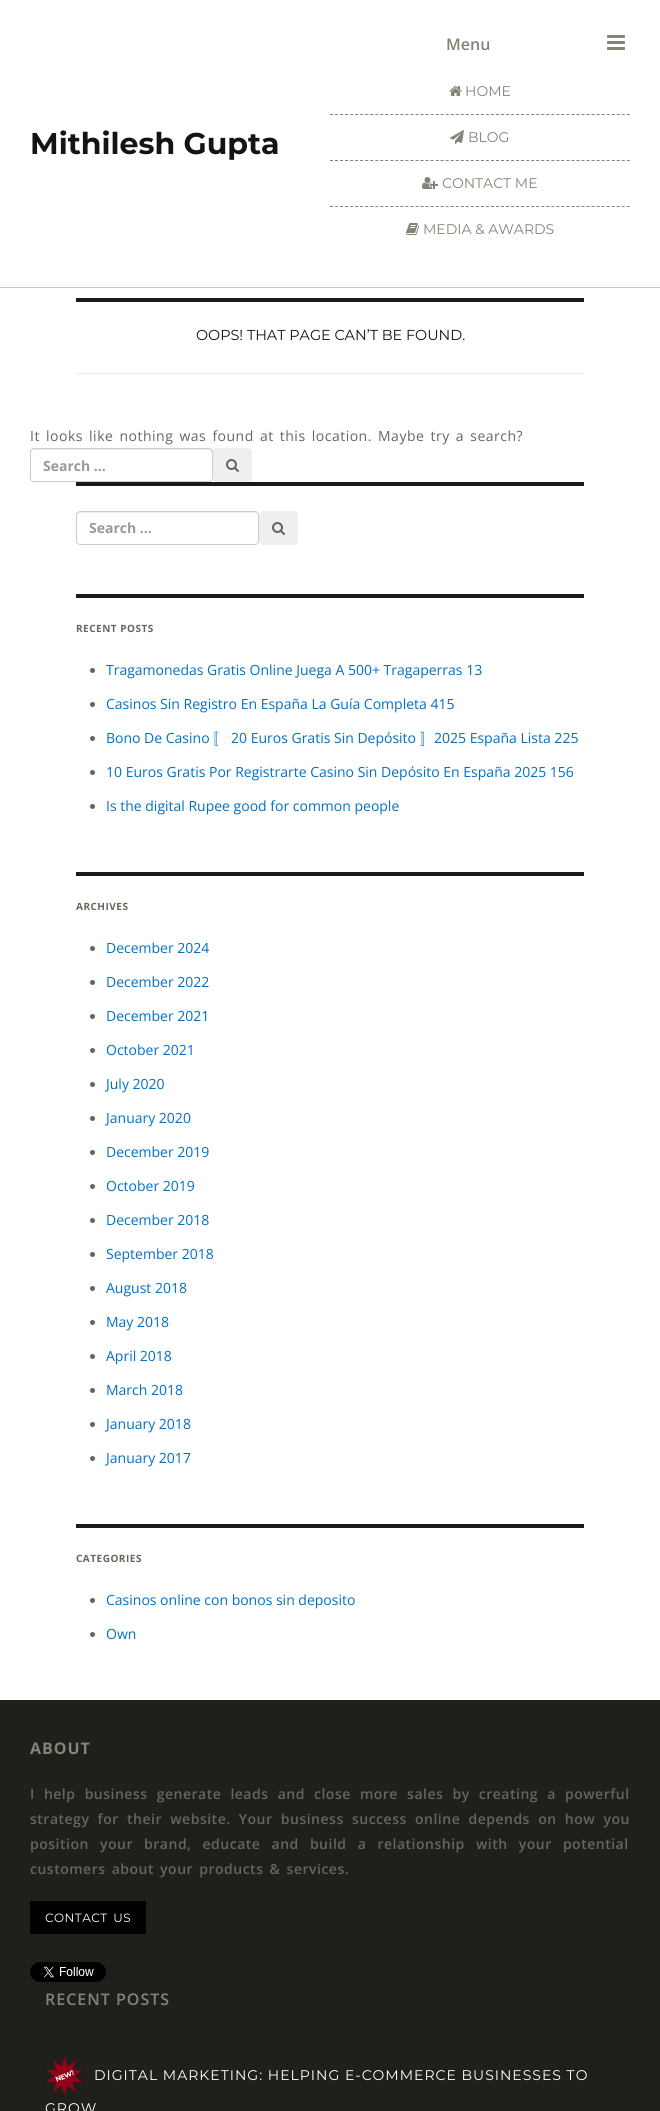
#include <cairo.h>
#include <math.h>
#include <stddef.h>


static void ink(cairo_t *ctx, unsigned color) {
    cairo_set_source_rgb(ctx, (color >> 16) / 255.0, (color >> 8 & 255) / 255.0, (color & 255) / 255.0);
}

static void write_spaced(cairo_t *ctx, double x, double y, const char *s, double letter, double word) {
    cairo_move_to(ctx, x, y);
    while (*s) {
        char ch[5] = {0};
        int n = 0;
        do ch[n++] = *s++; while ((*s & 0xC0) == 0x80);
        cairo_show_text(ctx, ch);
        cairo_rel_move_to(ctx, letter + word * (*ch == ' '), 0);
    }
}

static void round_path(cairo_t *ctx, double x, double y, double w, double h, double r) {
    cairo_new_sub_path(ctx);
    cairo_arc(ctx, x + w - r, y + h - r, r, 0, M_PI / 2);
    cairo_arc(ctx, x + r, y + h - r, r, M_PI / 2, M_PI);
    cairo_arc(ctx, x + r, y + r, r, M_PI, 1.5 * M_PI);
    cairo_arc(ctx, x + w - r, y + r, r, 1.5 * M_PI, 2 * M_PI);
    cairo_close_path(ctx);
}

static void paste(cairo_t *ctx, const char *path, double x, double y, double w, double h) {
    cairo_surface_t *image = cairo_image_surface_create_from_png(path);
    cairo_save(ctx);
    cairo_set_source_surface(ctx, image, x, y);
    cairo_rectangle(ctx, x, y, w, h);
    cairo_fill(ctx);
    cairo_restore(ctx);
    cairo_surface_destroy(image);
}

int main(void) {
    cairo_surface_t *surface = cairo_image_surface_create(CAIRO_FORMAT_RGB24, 660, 2111);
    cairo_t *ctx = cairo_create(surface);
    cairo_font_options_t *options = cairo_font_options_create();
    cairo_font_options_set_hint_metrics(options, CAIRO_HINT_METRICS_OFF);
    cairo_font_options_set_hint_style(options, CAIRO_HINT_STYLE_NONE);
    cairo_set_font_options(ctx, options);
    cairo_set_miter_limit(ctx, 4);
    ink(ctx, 0xFFFFFF);
    cairo_paint(ctx);
    ink(ctx, 0xCCC7B8);
    cairo_rectangle(ctx, 0, 287, 660, 1);
    cairo_fill(ctx);
    cairo_select_font_face(ctx, "Montserrat", CAIRO_FONT_SLANT_NORMAL, CAIRO_FONT_WEIGHT_BOLD);
    cairo_set_font_size(ctx, 30);
    ink(ctx, 0x141412);
    cairo_move_to(ctx, 30, 154);
    cairo_show_text(ctx, "Mithilesh Gupta");
    cairo_select_font_face(ctx, "Open Sans SemiBold", CAIRO_FONT_SLANT_NORMAL, CAIRO_FONT_WEIGHT_NORMAL);
    cairo_set_font_size(ctx, 16);
    ink(ctx, 0x858278);
    cairo_move_to(ctx, 446, 50);
    cairo_show_text(ctx, "Menu");
    paste(ctx, "media/1.png", 607, 35, 18, 15);
    cairo_new_path(ctx);
    cairo_move_to(ctx, 330, 114.5);
    cairo_line_to(ctx, 630, 114.5);
    cairo_set_line_width(ctx, 1);
    cairo_set_dash(ctx, (double[]){3, 2.03}, 2, 0);
    cairo_stroke(ctx);
    paste(ctx, "media/2.png", 449, 86, 13, 10);
    cairo_select_font_face(ctx, "Montserrat", CAIRO_FONT_SLANT_NORMAL, CAIRO_FONT_WEIGHT_NORMAL);
    cairo_set_font_size(ctx, 14);
    cairo_move_to(ctx, 465, 96);
    cairo_show_text(ctx, "HOME");
    cairo_new_path(ctx);
    cairo_move_to(ctx, 330, 160.5);
    cairo_line_to(ctx, 630, 160.5);
    cairo_stroke(ctx);
    paste(ctx, "media/3.png", 450, 130, 14, 14);
    cairo_move_to(ctx, 468, 142);
    cairo_show_text(ctx, "BLOG");
    cairo_new_path(ctx);
    cairo_move_to(ctx, 330, 206.5);
    cairo_line_to(ctx, 630, 206.5);
    cairo_stroke(ctx);
    paste(ctx, "media/4.png", 422, 177, 16, 12);
    cairo_move_to(ctx, 442, 188);
    cairo_show_text(ctx, "CONTACT ME");
    paste(ctx, "media/5.png", 406, 223, 13, 12);
    cairo_move_to(ctx, 423, 234);
    cairo_show_text(ctx, "MEDIA & AWARDS");
    ink(ctx, 0x1A1A1A);
    cairo_rectangle(ctx, 76, 298, 508, 4);
    cairo_fill(ctx);
    ink(ctx, 0xEEEEEE);
    cairo_rectangle(ctx, 76, 373, 508, 1);
    cairo_fill(ctx);
    cairo_set_font_size(ctx, 14.4);
    ink(ctx, 0x141412);
    cairo_move_to(ctx, 196, 340);
    cairo_show_text(ctx, "OOPS! THAT PAGE CAN’T BE FOUND.");
    cairo_select_font_face(ctx, "Open Sans", CAIRO_FONT_SLANT_NORMAL, CAIRO_FONT_WEIGHT_NORMAL);
    cairo_set_font_size(ctx, 14);
    ink(ctx, 0x66665C);
    write_spaced(ctx, 30, 441, "It looks like nothing was found at this location. Maybe try a search?", 0.5, 2);
    ink(ctx, 0xECECEC);
    cairo_new_path(ctx);
    cairo_move_to(ctx, 34, 450);
    cairo_line_to(ctx, 210, 450);
    cairo_line_to(ctx, 211, 451);
    cairo_line_to(ctx, 212, 453);
    cairo_line_to(ctx, 212, 452);
    cairo_curve_to(ctx, 212, 450, 211, 449, 209, 449);
    cairo_line_to(ctx, 34, 449);
    cairo_curve_to(ctx, 32, 449, 31, 450, 31, 452);
    cairo_line_to(ctx, 31, 453);
    cairo_curve_to(ctx, 31, 451, 32, 450, 34, 450);
    cairo_close_path(ctx);
    cairo_fill(ctx);
    round_path(ctx, 30.5, 448.5, 182, 33, 3.5);
    ink(ctx, 0xCCCCCC);
    cairo_set_dash(ctx, NULL, 0, 0);
    cairo_stroke(ctx);
    cairo_select_font_face(ctx, "Open Sans", CAIRO_FONT_SLANT_NORMAL, CAIRO_FONT_WEIGHT_BOLD);
    ink(ctx, 0x999999);
    cairo_move_to(ctx, 43, 471);
    cairo_show_text(ctx, "Search …");
    ink(ctx, 0xEFEFEF);
    round_path(ctx, 213, 448, 39, 34, 4);
    cairo_fill(ctx);
    paste(ctx, "media/6.png", 226, 459, 13, 13);
    ink(ctx, 0x1A1A1A);
    cairo_rectangle(ctx, 76, 482, 508, 4);
    cairo_fill(ctx);
    ink(ctx, 0xECECEC);
    cairo_new_path(ctx);
    cairo_move_to(ctx, 80, 513);
    cairo_line_to(ctx, 256, 513);
    cairo_line_to(ctx, 257, 514);
    cairo_line_to(ctx, 258, 516);
    cairo_line_to(ctx, 258, 515);
    cairo_curve_to(ctx, 258, 513, 257, 512, 255, 512);
    cairo_line_to(ctx, 80, 512);
    cairo_curve_to(ctx, 78, 512, 77, 513, 77, 515);
    cairo_line_to(ctx, 77, 516);
    cairo_curve_to(ctx, 77, 514, 78, 513, 80, 513);
    cairo_close_path(ctx);
    cairo_fill(ctx);
    round_path(ctx, 76.5, 511.5, 182, 33, 3.5);
    ink(ctx, 0xCCCCCC);
    cairo_stroke(ctx);
    ink(ctx, 0x999999);
    cairo_move_to(ctx, 89, 533);
    cairo_show_text(ctx, "Search …");
    ink(ctx, 0xEFEFEF);
    round_path(ctx, 259, 511, 39, 34, 4);
    cairo_fill(ctx);
    paste(ctx, "media/6.png", 272, 522, 13, 13);
    ink(ctx, 0x1A1A1A);
    cairo_rectangle(ctx, 76, 594, 508, 4);
    cairo_fill(ctx);
    cairo_set_font_size(ctx, 10);
    ink(ctx, 0x66665C);
    write_spaced(ctx, 76, 632, "RECENT POSTS", 0.5, 0);
    cairo_new_path(ctx);
    cairo_arc(ctx, 92.5, 670.5, 2.5, 0, 2 * M_PI);
    cairo_fill(ctx);
    cairo_select_font_face(ctx, "Open Sans", CAIRO_FONT_SLANT_NORMAL, CAIRO_FONT_WEIGHT_NORMAL);
    cairo_set_font_size(ctx, 14);
    ink(ctx, 0x046FC2);
    cairo_move_to(ctx, 106, 675);
    cairo_show_text(ctx, "Tragamonedas Gratis Online Juega A 500+ Tragaperras 13");
    ink(ctx, 0x66665C);
    cairo_new_path(ctx);
    cairo_arc(ctx, 92.5, 704.5, 2.5, 0, 2 * M_PI);
    cairo_fill(ctx);
    ink(ctx, 0x046FC2);
    cairo_move_to(ctx, 106, 709);
    cairo_show_text(ctx, "Casinos Sin Registro En España La Guía Completa 415");
    ink(ctx, 0x66665C);
    cairo_new_path(ctx);
    cairo_arc(ctx, 92.5, 738.5, 2.5, 0, 2 * M_PI);
    cairo_fill(ctx);
    ink(ctx, 0x046FC2);
    cairo_move_to(ctx, 106, 743);
    cairo_show_text(ctx, "Bono De Casino");
    cairo_select_font_face(ctx, "WenQuanYi Zen Hei Medium", CAIRO_FONT_SLANT_NORMAL, CAIRO_FONT_WEIGHT_NORMAL);
    cairo_move_to(ctx, 213, 743);
    cairo_show_text(ctx, "〚");
    cairo_select_font_face(ctx, "Open Sans", CAIRO_FONT_SLANT_NORMAL, CAIRO_FONT_WEIGHT_NORMAL);
    cairo_move_to(ctx, 231, 743);
    cairo_show_text(ctx, "20 Euros Gratis Sin Depósito");
    cairo_select_font_face(ctx, "WenQuanYi Zen Hei Medium", CAIRO_FONT_SLANT_NORMAL, CAIRO_FONT_WEIGHT_NORMAL);
    cairo_move_to(ctx, 420, 743);
    cairo_show_text(ctx, "〛");
    cairo_select_font_face(ctx, "Open Sans", CAIRO_FONT_SLANT_NORMAL, CAIRO_FONT_WEIGHT_NORMAL);
    cairo_move_to(ctx, 434, 743);
    cairo_show_text(ctx, "2025 España Lista 225");
    ink(ctx, 0x66665C);
    cairo_new_path(ctx);
    cairo_arc(ctx, 92.5, 772.5, 2.5, 0, 2 * M_PI);
    cairo_fill(ctx);
    ink(ctx, 0x046FC2);
    cairo_move_to(ctx, 106, 777);
    cairo_show_text(ctx, "10 Euros Gratis Por Registrarte Casino Sin Depósito En España 2025 156");
    ink(ctx, 0x66665C);
    cairo_new_path(ctx);
    cairo_arc(ctx, 92.5, 806.5, 2.5, 0, 2 * M_PI);
    cairo_fill(ctx);
    ink(ctx, 0x046FC2);
    cairo_move_to(ctx, 106, 811);
    cairo_show_text(ctx, "Is the digital Rupee good for common people");
    ink(ctx, 0x1A1A1A);
    cairo_rectangle(ctx, 76, 872, 508, 4);
    cairo_fill(ctx);
    cairo_select_font_face(ctx, "Open Sans", CAIRO_FONT_SLANT_NORMAL, CAIRO_FONT_WEIGHT_BOLD);
    cairo_set_font_size(ctx, 10);
    ink(ctx, 0x66665C);
    write_spaced(ctx, 76, 910, "ARCHIVES", 0.5, 0);
    cairo_new_path(ctx);
    cairo_arc(ctx, 92.5, 948.5, 2.5, 0, 2 * M_PI);
    cairo_fill(ctx);
    cairo_select_font_face(ctx, "Open Sans", CAIRO_FONT_SLANT_NORMAL, CAIRO_FONT_WEIGHT_NORMAL);
    cairo_set_font_size(ctx, 14);
    ink(ctx, 0x046FC2);
    cairo_move_to(ctx, 106, 953);
    cairo_show_text(ctx, "December 2024");
    ink(ctx, 0x66665C);
    cairo_new_path(ctx);
    cairo_arc(ctx, 92.5, 982.5, 2.5, 0, 2 * M_PI);
    cairo_fill(ctx);
    ink(ctx, 0x046FC2);
    cairo_move_to(ctx, 106, 987);
    cairo_show_text(ctx, "December 2022");
    ink(ctx, 0x66665C);
    cairo_new_path(ctx);
    cairo_arc(ctx, 92.5, 1016.5, 2.5, 0, 2 * M_PI);
    cairo_fill(ctx);
    ink(ctx, 0x046FC2);
    cairo_move_to(ctx, 106, 1021);
    cairo_show_text(ctx, "December 2021");
    ink(ctx, 0x66665C);
    cairo_new_path(ctx);
    cairo_arc(ctx, 92.5, 1050.5, 2.5, 0, 2 * M_PI);
    cairo_fill(ctx);
    ink(ctx, 0x046FC2);
    cairo_move_to(ctx, 106, 1055);
    cairo_show_text(ctx, "October 2021");
    ink(ctx, 0x66665C);
    cairo_new_path(ctx);
    cairo_arc(ctx, 92.5, 1084.5, 2.5, 0, 2 * M_PI);
    cairo_fill(ctx);
    ink(ctx, 0x046FC2);
    cairo_move_to(ctx, 106, 1089);
    cairo_show_text(ctx, "July 2020");
    ink(ctx, 0x66665C);
    cairo_new_path(ctx);
    cairo_arc(ctx, 92.5, 1118.5, 2.5, 0, 2 * M_PI);
    cairo_fill(ctx);
    ink(ctx, 0x046FC2);
    cairo_move_to(ctx, 106, 1123);
    cairo_show_text(ctx, "January 2020");
    ink(ctx, 0x66665C);
    cairo_new_path(ctx);
    cairo_arc(ctx, 92.5, 1152.5, 2.5, 0, 2 * M_PI);
    cairo_fill(ctx);
    ink(ctx, 0x046FC2);
    cairo_move_to(ctx, 106, 1157);
    cairo_show_text(ctx, "December 2019");
    ink(ctx, 0x66665C);
    cairo_new_path(ctx);
    cairo_arc(ctx, 92.5, 1186.5, 2.5, 0, 2 * M_PI);
    cairo_fill(ctx);
    ink(ctx, 0x046FC2);
    cairo_move_to(ctx, 106, 1191);
    cairo_show_text(ctx, "October 2019");
    ink(ctx, 0x66665C);
    cairo_new_path(ctx);
    cairo_arc(ctx, 92.5, 1220.5, 2.5, 0, 2 * M_PI);
    cairo_fill(ctx);
    ink(ctx, 0x046FC2);
    cairo_move_to(ctx, 106, 1225);
    cairo_show_text(ctx, "December 2018");
    ink(ctx, 0x66665C);
    cairo_new_path(ctx);
    cairo_arc(ctx, 92.5, 1254.5, 2.5, 0, 2 * M_PI);
    cairo_fill(ctx);
    ink(ctx, 0x046FC2);
    cairo_move_to(ctx, 106, 1259);
    cairo_show_text(ctx, "September 2018");
    ink(ctx, 0x66665C);
    cairo_new_path(ctx);
    cairo_arc(ctx, 92.5, 1288.5, 2.5, 0, 2 * M_PI);
    cairo_fill(ctx);
    ink(ctx, 0x046FC2);
    cairo_move_to(ctx, 106, 1293);
    cairo_show_text(ctx, "August 2018");
    ink(ctx, 0x66665C);
    cairo_new_path(ctx);
    cairo_arc(ctx, 92.5, 1322.5, 2.5, 0, 2 * M_PI);
    cairo_fill(ctx);
    ink(ctx, 0x046FC2);
    cairo_move_to(ctx, 106, 1327);
    cairo_show_text(ctx, "May 2018");
    ink(ctx, 0x66665C);
    cairo_new_path(ctx);
    cairo_arc(ctx, 92.5, 1356.5, 2.5, 0, 2 * M_PI);
    cairo_fill(ctx);
    ink(ctx, 0x046FC2);
    cairo_move_to(ctx, 106, 1361);
    cairo_show_text(ctx, "April 2018");
    ink(ctx, 0x66665C);
    cairo_new_path(ctx);
    cairo_arc(ctx, 92.5, 1390.5, 2.5, 0, 2 * M_PI);
    cairo_fill(ctx);
    ink(ctx, 0x046FC2);
    cairo_move_to(ctx, 106, 1395);
    cairo_show_text(ctx, "March 2018");
    ink(ctx, 0x66665C);
    cairo_new_path(ctx);
    cairo_arc(ctx, 92.5, 1424.5, 2.5, 0, 2 * M_PI);
    cairo_fill(ctx);
    ink(ctx, 0x046FC2);
    cairo_move_to(ctx, 106, 1429);
    cairo_show_text(ctx, "January 2018");
    ink(ctx, 0x66665C);
    cairo_new_path(ctx);
    cairo_arc(ctx, 92.5, 1458.5, 2.5, 0, 2 * M_PI);
    cairo_fill(ctx);
    ink(ctx, 0x046FC2);
    cairo_move_to(ctx, 106, 1463);
    cairo_show_text(ctx, "January 2017");
    ink(ctx, 0x1A1A1A);
    cairo_rectangle(ctx, 76, 1524, 508, 4);
    cairo_fill(ctx);
    cairo_select_font_face(ctx, "Open Sans", CAIRO_FONT_SLANT_NORMAL, CAIRO_FONT_WEIGHT_BOLD);
    cairo_set_font_size(ctx, 10);
    ink(ctx, 0x66665C);
    write_spaced(ctx, 76, 1562, "CATEGORIES", 0.5, 0);
    cairo_new_path(ctx);
    cairo_arc(ctx, 92.5, 1600.5, 2.5, 0, 2 * M_PI);
    cairo_fill(ctx);
    cairo_select_font_face(ctx, "Open Sans", CAIRO_FONT_SLANT_NORMAL, CAIRO_FONT_WEIGHT_NORMAL);
    cairo_set_font_size(ctx, 14);
    ink(ctx, 0x046FC2);
    cairo_move_to(ctx, 106, 1605);
    cairo_show_text(ctx, "Casinos online con bonos sin deposito");
    ink(ctx, 0x66665C);
    cairo_new_path(ctx);
    cairo_arc(ctx, 92.5, 1634.5, 2.5, 0, 2 * M_PI);
    cairo_fill(ctx);
    ink(ctx, 0x046FC2);
    cairo_move_to(ctx, 106, 1639);
    cairo_show_text(ctx, "Own");
    ink(ctx, 0x1F1F1C);
    cairo_rectangle(ctx, 0, 1700, 660, 411);
    cairo_fill(ctx);
    cairo_select_font_face(ctx, "Open Sans", CAIRO_FONT_SLANT_NORMAL, CAIRO_FONT_WEIGHT_BOLD);
    cairo_set_font_size(ctx, 16);
    ink(ctx, 0x858278);
    write_spaced(ctx, 30, 1754, "ABOUT", 1, 0);
    cairo_select_font_face(ctx, "Open Sans SemiBold", CAIRO_FONT_SLANT_NORMAL, CAIRO_FONT_WEIGHT_NORMAL);
    cairo_set_font_size(ctx, 14);
    ink(ctx, 0x66665C);
    write_spaced(ctx, 30, 1799, "I help business generate leads and close more sales by creating a powerful", 0.5, 5);
    write_spaced(ctx, 30, 1824, "strategy for their website. Your business success online depends on how you", 0.5, 4.1);
    write_spaced(ctx, 30, 1849, "position your brand, educate and build a relationship with your potential", 0.5, 7);
    write_spaced(ctx, 30, 1874, "customers about your products & services.", 0.5, 2);
    ink(ctx, 0x000000);
    cairo_rectangle(ctx, 30, 1901, 116, 33);
    cairo_fill(ctx);
    cairo_select_font_face(ctx, "Montserrat", CAIRO_FONT_SLANT_NORMAL, CAIRO_FONT_WEIGHT_NORMAL);
    cairo_set_font_size(ctx, 12);
    ink(ctx, 0xFFFFFF);
    write_spaced(ctx, 45, 1922, "CONTACT US", 0.5, 2);
    paste(ctx, "media/7.png", 30, 1962, 76, 20);
    cairo_select_font_face(ctx, "Open Sans SemiBold", CAIRO_FONT_SLANT_NORMAL, CAIRO_FONT_WEIGHT_NORMAL);
    cairo_set_font_size(ctx, 16);
    ink(ctx, 0x858278);
    write_spaced(ctx, 45, 2005, "RECENT POSTS", 1, 0);
    paste(ctx, "media/8.png", 46, 2056, 37, 40);
    cairo_select_font_face(ctx, "Montserrat", CAIRO_FONT_SLANT_NORMAL, CAIRO_FONT_WEIGHT_NORMAL);
    cairo_set_font_size(ctx, 14);
    ink(ctx, 0xFFFFFF);
    write_spaced(ctx, 94, 2080, "DIGITAL MARKETING: HELPING E-COMMERCE BUSINESSES TO", 1, 0);
    write_spaced(ctx, 45, 2113, "GROW", 1, 0);
    cairo_surface_write_to_png(surface, "image.png");
    cairo_font_options_destroy(options);
    cairo_destroy(ctx);
    cairo_surface_destroy(surface);
    return 0;
}
